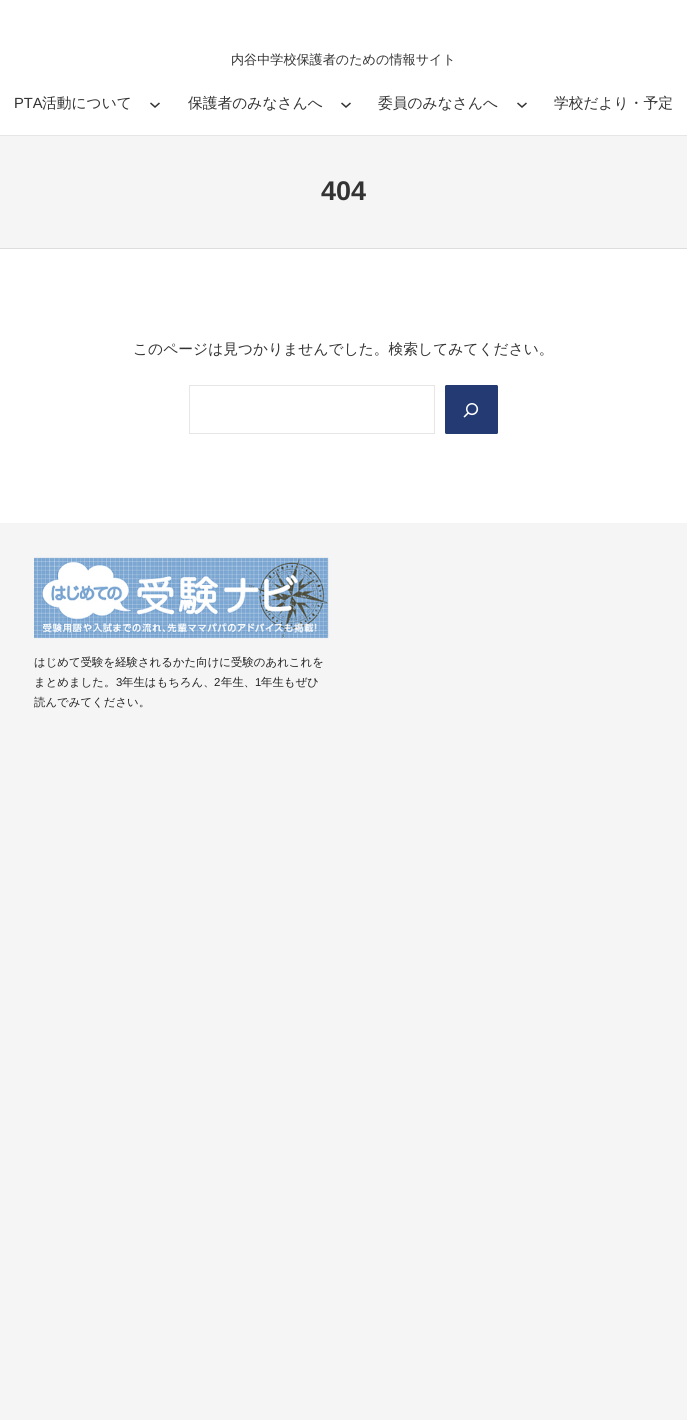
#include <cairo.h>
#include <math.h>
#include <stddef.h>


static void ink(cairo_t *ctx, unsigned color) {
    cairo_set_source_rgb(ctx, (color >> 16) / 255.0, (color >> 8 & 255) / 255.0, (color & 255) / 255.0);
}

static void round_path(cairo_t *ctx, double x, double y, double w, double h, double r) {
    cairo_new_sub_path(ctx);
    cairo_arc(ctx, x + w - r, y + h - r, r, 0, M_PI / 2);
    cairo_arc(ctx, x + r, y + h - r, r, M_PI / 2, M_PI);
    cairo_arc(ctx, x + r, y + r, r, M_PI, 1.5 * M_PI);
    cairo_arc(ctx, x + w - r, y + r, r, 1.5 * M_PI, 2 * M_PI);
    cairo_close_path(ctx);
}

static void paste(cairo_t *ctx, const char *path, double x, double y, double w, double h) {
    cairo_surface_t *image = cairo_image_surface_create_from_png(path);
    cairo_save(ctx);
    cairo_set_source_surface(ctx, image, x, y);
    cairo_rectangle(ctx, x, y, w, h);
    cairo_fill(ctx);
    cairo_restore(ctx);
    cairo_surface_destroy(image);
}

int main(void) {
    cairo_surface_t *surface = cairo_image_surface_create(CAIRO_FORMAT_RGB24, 687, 1420);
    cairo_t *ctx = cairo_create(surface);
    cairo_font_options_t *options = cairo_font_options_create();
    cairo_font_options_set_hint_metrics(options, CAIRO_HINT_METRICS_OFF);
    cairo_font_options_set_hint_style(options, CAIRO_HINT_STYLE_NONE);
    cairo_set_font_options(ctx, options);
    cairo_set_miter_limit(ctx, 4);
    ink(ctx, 0xFFFFFF);
    cairo_paint(ctx);
    ink(ctx, 0xE6E6E6);
    cairo_rectangle(ctx, 0, 135, 687, 1);
    cairo_fill(ctx);
    cairo_select_font_face(ctx, "WenQuanYi Zen Hei Medium", CAIRO_FONT_SLANT_NORMAL, CAIRO_FONT_WEIGHT_NORMAL);
    cairo_set_font_size(ctx, 13.1);
    ink(ctx, 0x333333);
    cairo_move_to(ctx, 231, 64);
    cairo_show_text(ctx, "内谷中学校保護者のための情報サイト");
    cairo_select_font_face(ctx, "Liberation Sans", CAIRO_FONT_SLANT_NORMAL, CAIRO_FONT_WEIGHT_NORMAL);
    cairo_set_font_size(ctx, 14.75);
    cairo_move_to(ctx, 14, 108);
    cairo_show_text(ctx, "PTA");
    cairo_select_font_face(ctx, "WenQuanYi Zen Hei Medium", CAIRO_FONT_SLANT_NORMAL, CAIRO_FONT_WEIGHT_NORMAL);
    cairo_move_to(ctx, 42, 108);
    cairo_show_text(ctx, "活動について");
    cairo_new_path(ctx);
    cairo_move_to(ctx, 150.5, 103);
    cairo_line_to(ctx, 155, 107);
    cairo_line_to(ctx, 159.5, 103);
    cairo_set_line_width(ctx, 1.5);
    cairo_stroke(ctx);
    cairo_move_to(ctx, 188, 108);
    cairo_show_text(ctx, "保護者のみなさんへ");
    cairo_new_path(ctx);
    cairo_move_to(ctx, 341.5, 103);
    cairo_line_to(ctx, 346, 107);
    cairo_line_to(ctx, 350.5, 103);
    cairo_stroke(ctx);
    cairo_move_to(ctx, 378, 108);
    cairo_show_text(ctx, "委員のみなさんへ");
    cairo_new_path(ctx);
    cairo_move_to(ctx, 517.5, 103);
    cairo_line_to(ctx, 522, 107);
    cairo_line_to(ctx, 526.5, 103);
    cairo_stroke(ctx);
    cairo_move_to(ctx, 554, 108);
    cairo_show_text(ctx, "学校だより・予定");
    ink(ctx, 0xF5F5F5);
    cairo_rectangle(ctx, 0, 136, 687, 112);
    cairo_fill(ctx);
    ink(ctx, 0xDDDDDD);
    cairo_rectangle(ctx, 0, 248, 687, 1);
    cairo_fill(ctx);
    cairo_select_font_face(ctx, "Liberation Sans", CAIRO_FONT_SLANT_NORMAL, CAIRO_FONT_WEIGHT_BOLD);
    cairo_set_font_size(ctx, 27);
    ink(ctx, 0x333333);
    cairo_move_to(ctx, 321, 200);
    cairo_show_text(ctx, "404");
    cairo_select_font_face(ctx, "WenQuanYi Zen Hei Medium", CAIRO_FONT_SLANT_NORMAL, CAIRO_FONT_WEIGHT_NORMAL);
    cairo_set_font_size(ctx, 14.75);
    cairo_move_to(ctx, 133, 354);
    cairo_show_text(ctx, "このページは見つかりませんでした。検索してみてください。");
    cairo_rectangle(ctx, 189.5, 385.5, 245, 48);
    ink(ctx, 0xE6E6E6);
    cairo_set_line_width(ctx, 1);
    cairo_stroke(ctx);
    ink(ctx, 0x233A73);
    round_path(ctx, 445, 385, 53, 49, 1.5);
    cairo_fill(ctx);
    paste(ctx, "media/1.png", 463, 403, 16, 15);
    ink(ctx, 0xF5F5F5);
    cairo_rectangle(ctx, 0, 523, 687, 897);
    cairo_fill(ctx);
    paste(ctx, "media/2.png", 34, 557, 295, 82);
    cairo_set_font_size(ctx, 11.4);
    ink(ctx, 0x222222);
    cairo_move_to(ctx, 34, 666);
    cairo_show_text(ctx, "はじめて受験を経験されるかた向けに受験のあれこれを");
    cairo_move_to(ctx, 34, 686);
    cairo_show_text(ctx, "まとめました。");
    cairo_select_font_face(ctx, "Liberation Sans", CAIRO_FONT_SLANT_NORMAL, CAIRO_FONT_WEIGHT_NORMAL);
    cairo_move_to(ctx, 116, 686);
    cairo_show_text(ctx, "3");
    cairo_select_font_face(ctx, "WenQuanYi Zen Hei Medium", CAIRO_FONT_SLANT_NORMAL, CAIRO_FONT_WEIGHT_NORMAL);
    cairo_move_to(ctx, 122, 686);
    cairo_show_text(ctx, "年生はもちろん、");
    cairo_select_font_face(ctx, "Liberation Sans", CAIRO_FONT_SLANT_NORMAL, CAIRO_FONT_WEIGHT_NORMAL);
    cairo_move_to(ctx, 214, 686);
    cairo_show_text(ctx, "2");
    cairo_select_font_face(ctx, "WenQuanYi Zen Hei Medium", CAIRO_FONT_SLANT_NORMAL, CAIRO_FONT_WEIGHT_NORMAL);
    cairo_move_to(ctx, 221, 686);
    cairo_show_text(ctx, "年生、");
    cairo_select_font_face(ctx, "Liberation Sans", CAIRO_FONT_SLANT_NORMAL, CAIRO_FONT_WEIGHT_NORMAL);
    cairo_move_to(ctx, 255, 686);
    cairo_show_text(ctx, "1");
    cairo_select_font_face(ctx, "WenQuanYi Zen Hei Medium", CAIRO_FONT_SLANT_NORMAL, CAIRO_FONT_WEIGHT_NORMAL);
    cairo_move_to(ctx, 261, 686);
    cairo_show_text(ctx, "年生もぜひ");
    cairo_move_to(ctx, 34, 706);
    cairo_show_text(ctx, "読んでみてください。");
    cairo_surface_write_to_png(surface, "image.png");
    cairo_font_options_destroy(options);
    cairo_destroy(ctx);
    cairo_surface_destroy(surface);
    return 0;
}
